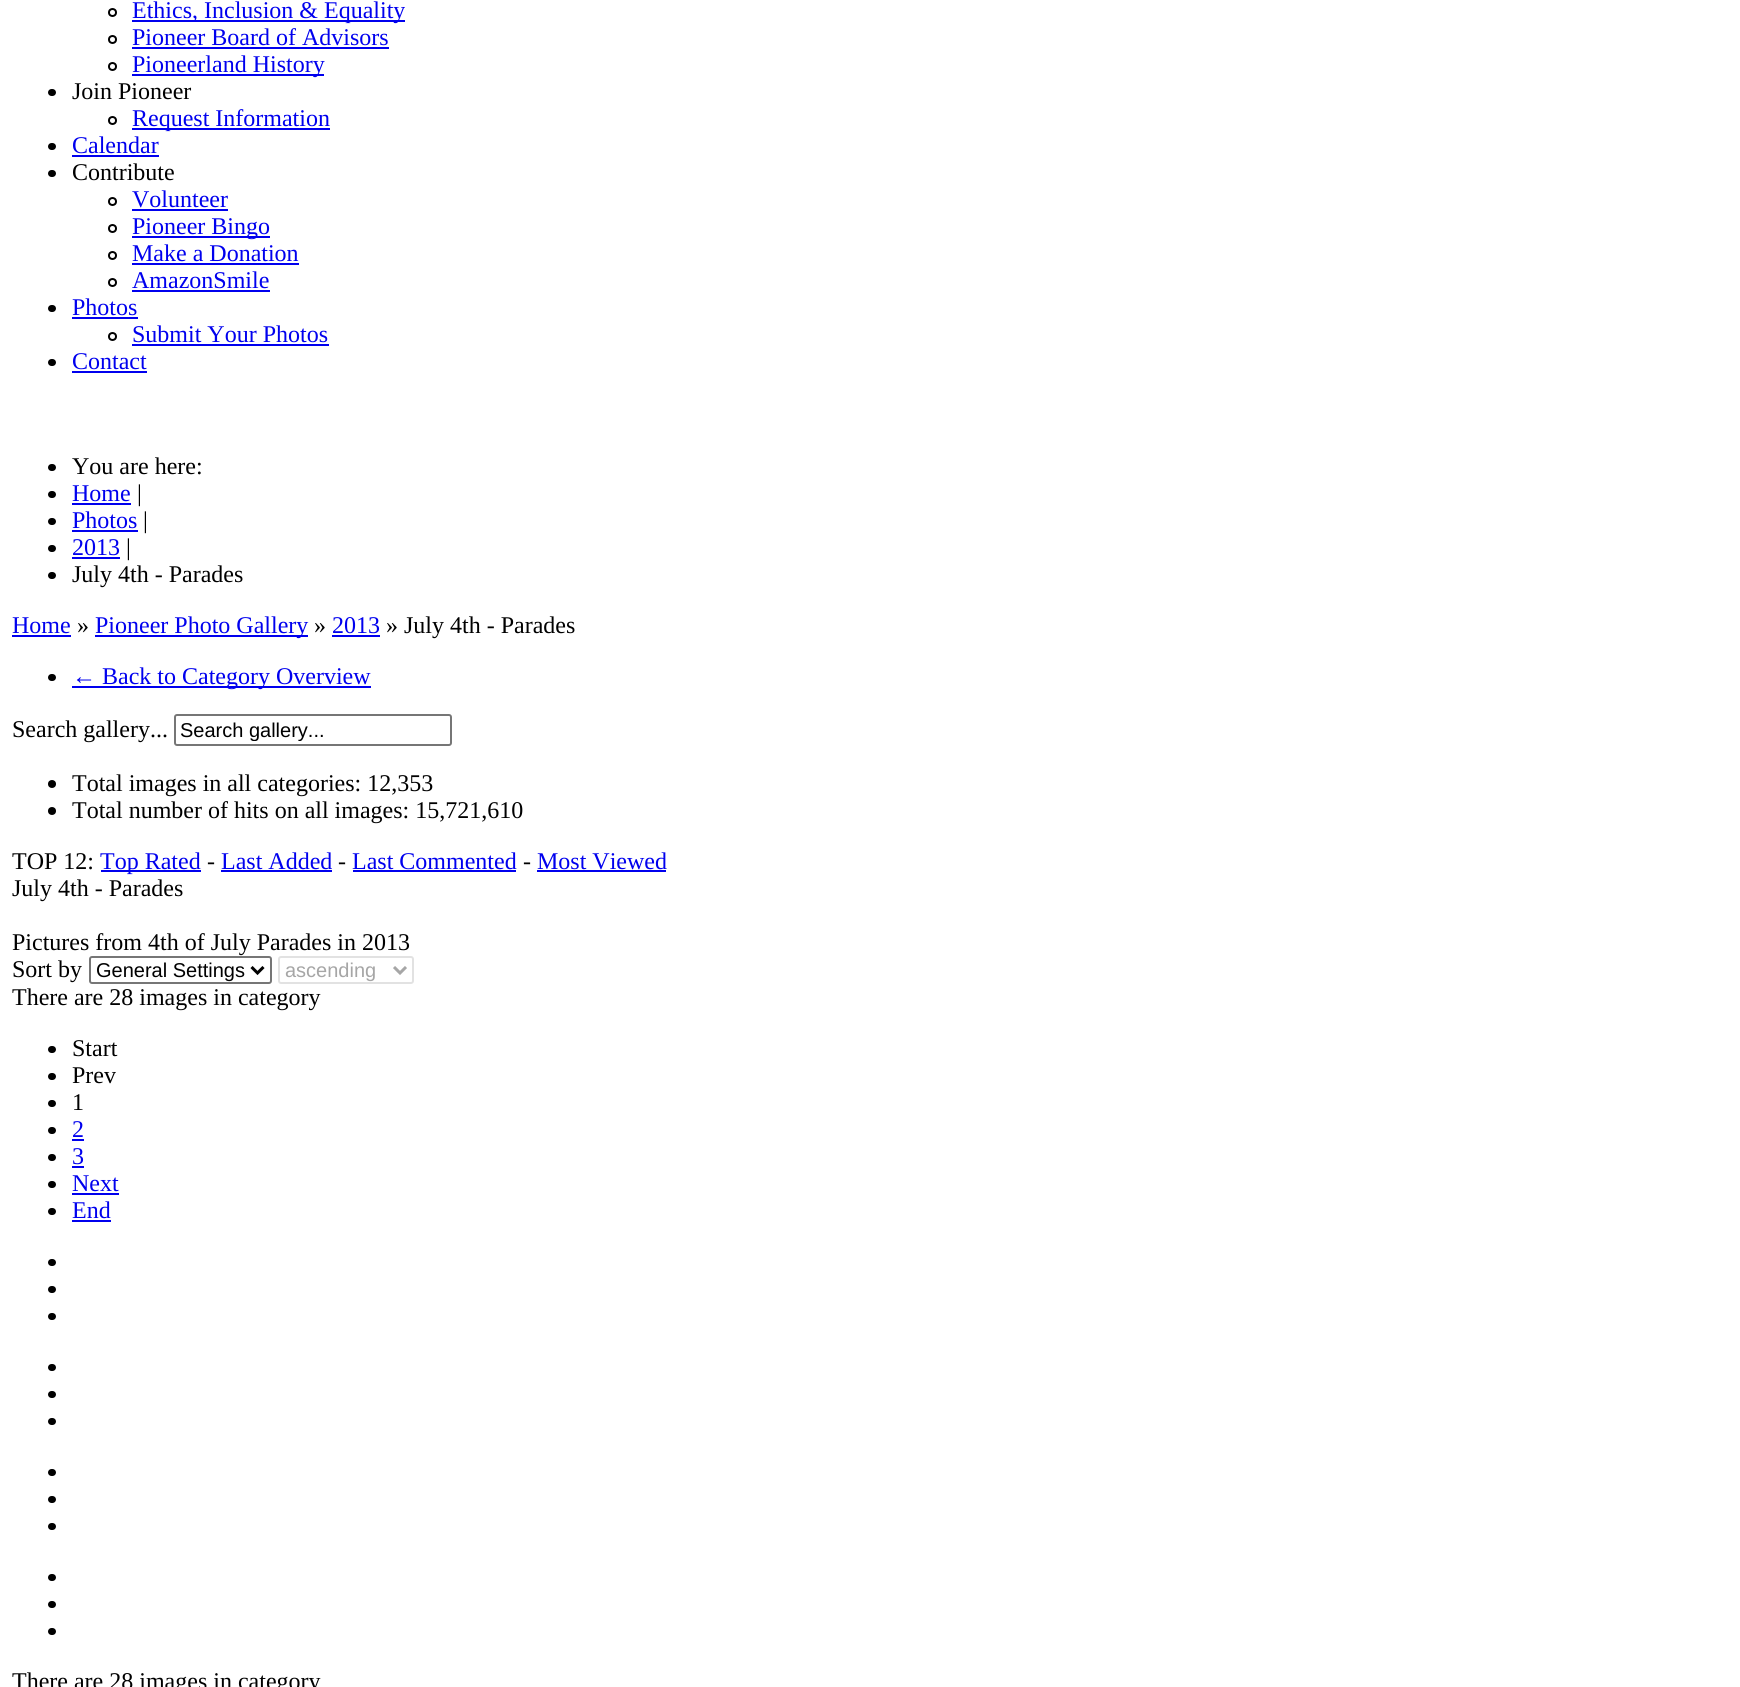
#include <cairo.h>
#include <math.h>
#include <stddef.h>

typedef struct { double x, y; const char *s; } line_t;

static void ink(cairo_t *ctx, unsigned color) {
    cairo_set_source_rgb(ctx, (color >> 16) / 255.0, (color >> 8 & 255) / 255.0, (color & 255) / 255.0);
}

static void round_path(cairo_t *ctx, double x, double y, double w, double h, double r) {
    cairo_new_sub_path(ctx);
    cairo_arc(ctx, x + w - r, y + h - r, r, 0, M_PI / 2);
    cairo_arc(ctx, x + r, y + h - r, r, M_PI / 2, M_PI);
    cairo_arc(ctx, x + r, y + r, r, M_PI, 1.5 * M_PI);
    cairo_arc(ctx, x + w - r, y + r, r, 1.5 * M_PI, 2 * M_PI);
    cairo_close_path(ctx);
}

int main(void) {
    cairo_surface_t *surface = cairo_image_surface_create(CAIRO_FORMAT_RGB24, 1740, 1687);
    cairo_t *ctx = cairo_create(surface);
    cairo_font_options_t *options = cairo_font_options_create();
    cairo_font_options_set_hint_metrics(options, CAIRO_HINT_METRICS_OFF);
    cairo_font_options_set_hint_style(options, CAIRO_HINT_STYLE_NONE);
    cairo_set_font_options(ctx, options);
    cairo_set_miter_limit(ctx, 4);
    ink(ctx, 0xFFFFFF);
    cairo_paint(ctx);
    cairo_arc(ctx, 112.5, 12.5, 3.5, 0, 2 * M_PI);
    ink(ctx, 0x000000);
    cairo_stroke(ctx);
    ink(ctx, 0x0000EE);
    cairo_rectangle(ctx, 132, 20, 273, 2);
    cairo_fill(ctx);
    cairo_select_font_face(ctx, "Liberation Serif", CAIRO_FONT_SLANT_NORMAL, CAIRO_FONT_WEIGHT_NORMAL);
    cairo_set_font_size(ctx, 24);
    cairo_move_to(ctx, 132, 18);
    cairo_show_text(ctx, "Ethics, Inclusion & Equality");
    cairo_new_path(ctx);
    cairo_arc(ctx, 112.5, 39.5, 3.5, 0, 2 * M_PI);
    ink(ctx, 0x000000);
    cairo_stroke(ctx);
    ink(ctx, 0x0000EE);
    cairo_move_to(ctx, 132, 45);
    cairo_show_text(ctx, "Pioneer Board of Advisors");
    cairo_rectangle(ctx, 132, 47, 257, 2);
    cairo_fill(ctx);
    cairo_arc(ctx, 112.5, 66.5, 3.5, 0, 2 * M_PI);
    ink(ctx, 0x000000);
    cairo_stroke(ctx);
    ink(ctx, 0x0000EE);
    cairo_rectangle(ctx, 132, 74, 192, 2);
    cairo_fill(ctx);
    cairo_move_to(ctx, 132, 72);
    cairo_show_text(ctx, "Pioneerland History");
    ink(ctx, 0x000000);
    round_path(ctx, 48, 89, 8, 7, 3.5);
    cairo_fill(ctx);
    cairo_move_to(ctx, 72, 99);
    cairo_show_text(ctx, "Join Pioneer");
    cairo_new_path(ctx);
    cairo_arc(ctx, 112.5, 120.5, 3.5, 0, 2 * M_PI);
    cairo_stroke(ctx);
    ink(ctx, 0x0000EE);
    cairo_rectangle(ctx, 132, 128, 198, 2);
    cairo_fill(ctx);
    cairo_move_to(ctx, 132, 126);
    cairo_show_text(ctx, "Request Information");
    ink(ctx, 0x000000);
    round_path(ctx, 48, 143, 8, 7, 3.5);
    cairo_fill(ctx);
    ink(ctx, 0x0000EE);
    cairo_move_to(ctx, 72, 153);
    cairo_show_text(ctx, "Calendar");
    cairo_rectangle(ctx, 72, 155, 87, 2);
    cairo_fill(ctx);
    ink(ctx, 0x000000);
    round_path(ctx, 48, 170, 8, 7, 3.5);
    cairo_fill(ctx);
    cairo_move_to(ctx, 72, 180);
    cairo_show_text(ctx, "Contribute");
    cairo_new_path(ctx);
    cairo_arc(ctx, 112.5, 201.5, 3.5, 0, 2 * M_PI);
    cairo_stroke(ctx);
    ink(ctx, 0x0000EE);
    cairo_move_to(ctx, 132, 207);
    cairo_show_text(ctx, "Volunteer");
    cairo_rectangle(ctx, 132, 209, 96, 2);
    cairo_fill(ctx);
    cairo_arc(ctx, 112.5, 228.5, 3.5, 0, 2 * M_PI);
    ink(ctx, 0x000000);
    cairo_stroke(ctx);
    ink(ctx, 0x0000EE);
    cairo_rectangle(ctx, 132, 236, 138, 2);
    cairo_fill(ctx);
    cairo_move_to(ctx, 132, 234);
    cairo_show_text(ctx, "Pioneer Bingo");
    cairo_new_path(ctx);
    cairo_arc(ctx, 112.5, 255.5, 3.5, 0, 2 * M_PI);
    ink(ctx, 0x000000);
    cairo_stroke(ctx);
    ink(ctx, 0x0000EE);
    cairo_move_to(ctx, 132, 261);
    cairo_show_text(ctx, "Make a Donation");
    cairo_rectangle(ctx, 132, 263, 167, 2);
    cairo_fill(ctx);
    cairo_arc(ctx, 112.5, 282.5, 3.5, 0, 2 * M_PI);
    ink(ctx, 0x000000);
    cairo_stroke(ctx);
    ink(ctx, 0x0000EE);
    cairo_move_to(ctx, 132, 288);
    cairo_show_text(ctx, "AmazonSmile");
    cairo_rectangle(ctx, 132, 290, 138, 2);
    cairo_fill(ctx);
    ink(ctx, 0x000000);
    round_path(ctx, 48, 305, 8, 7, 3.5);
    cairo_fill(ctx);
    ink(ctx, 0x0000EE);
    cairo_move_to(ctx, 72, 315);
    cairo_show_text(ctx, "Photos");
    cairo_rectangle(ctx, 72, 317, 66, 2);
    cairo_fill(ctx);
    cairo_arc(ctx, 112.5, 336.5, 3.5, 0, 2 * M_PI);
    ink(ctx, 0x000000);
    cairo_stroke(ctx);
    ink(ctx, 0x0000EE);
    cairo_move_to(ctx, 132, 342);
    cairo_show_text(ctx, "Submit Your Photos");
    cairo_rectangle(ctx, 132, 344, 197, 2);
    cairo_fill(ctx);
    ink(ctx, 0x000000);
    round_path(ctx, 48, 359, 8, 7, 3.5);
    cairo_fill(ctx);
    ink(ctx, 0x0000EE);
    cairo_move_to(ctx, 72, 369);
    cairo_show_text(ctx, "Contact");
    cairo_rectangle(ctx, 72, 371, 75, 2);
    cairo_fill(ctx);
    ink(ctx, 0x000000);
    round_path(ctx, 48, 464, 8, 7, 3.5);
    cairo_fill(ctx);
    cairo_move_to(ctx, 72, 474);
    cairo_show_text(ctx, "You are here:");
    round_path(ctx, 48, 491, 8, 7, 3.5);
    cairo_fill(ctx);
    ink(ctx, 0x0000EE);
    cairo_move_to(ctx, 72, 501);
    cairo_show_text(ctx, "Home");
    cairo_rectangle(ctx, 72, 503, 59, 2);
    cairo_fill(ctx);
    ink(ctx, 0x000000);
    cairo_move_to(ctx, 137, 501);
    cairo_show_text(ctx, "|");
    round_path(ctx, 48, 518, 8, 7, 3.5);
    cairo_fill(ctx);
    ink(ctx, 0x0000EE);
    cairo_move_to(ctx, 72, 528);
    cairo_show_text(ctx, "Photos");
    cairo_rectangle(ctx, 72, 530, 66, 2);
    cairo_fill(ctx);
    ink(ctx, 0x000000);
    cairo_move_to(ctx, 143, 528);
    cairo_show_text(ctx, "|");
    round_path(ctx, 48, 545, 8, 7, 3.5);
    cairo_fill(ctx);
    ink(ctx, 0x0000EE);
    cairo_move_to(ctx, 72, 555);
    cairo_show_text(ctx, "2013");
    cairo_rectangle(ctx, 72, 557, 48, 2);
    cairo_fill(ctx);
    ink(ctx, 0x000000);
    cairo_move_to(ctx, 126, 555);
    cairo_show_text(ctx, "|");
    round_path(ctx, 48, 572, 8, 7, 3.5);
    cairo_fill(ctx);
    cairo_move_to(ctx, 72, 582);
    cairo_show_text(ctx, "July 4th - Parades");
    ink(ctx, 0x0000EE);
    cairo_move_to(ctx, 12, 633);
    cairo_show_text(ctx, "Home");
    cairo_rectangle(ctx, 12, 635, 59, 2);
    cairo_fill(ctx);
    ink(ctx, 0x000000);
    cairo_move_to(ctx, 77, 633);
    cairo_show_text(ctx, "»");
    ink(ctx, 0x0000EE);
    cairo_rectangle(ctx, 95, 635, 213, 2);
    cairo_fill(ctx);
    cairo_move_to(ctx, 95, 633);
    cairo_show_text(ctx, "Pioneer Photo Gallery");
    ink(ctx, 0x000000);
    cairo_move_to(ctx, 314, 633);
    cairo_show_text(ctx, "»");
    ink(ctx, 0x0000EE);
    cairo_move_to(ctx, 332, 633);
    cairo_show_text(ctx, "2013");
    cairo_rectangle(ctx, 332, 635, 48, 2);
    cairo_fill(ctx);
    ink(ctx, 0x000000);
    cairo_move_to(ctx, 386, 633);
    cairo_show_text(ctx, "» July 4th - Parades");
    round_path(ctx, 48, 674, 8, 7, 3.5);
    cairo_fill(ctx);
    ink(ctx, 0x0000EE);
    cairo_rectangle(ctx, 72, 686, 299, 2);
    cairo_fill(ctx);
    cairo_move_to(ctx, 72, 684);
    cairo_show_text(ctx, "← Back to Category Overview");
    ink(ctx, 0x000000);
    cairo_move_to(ctx, 12, 737);
    cairo_show_text(ctx, "Search gallery...");
    round_path(ctx, 175, 715, 276, 30, 2);
    ink(ctx, 0x767676);
    cairo_stroke(ctx);
    cairo_save(ctx);
    cairo_rectangle(ctx, 180, 719, 266, 22);
    cairo_clip(ctx);
    cairo_select_font_face(ctx, "Liberation Sans", CAIRO_FONT_SLANT_NORMAL, CAIRO_FONT_WEIGHT_NORMAL);
    cairo_set_font_size(ctx, 20);
    ink(ctx, 0x000000);
    cairo_move_to(ctx, 180, 737);
    cairo_show_text(ctx, "Search gallery...");
    cairo_restore(ctx);
    ink(ctx, 0x000000);
    cairo_new_path(ctx);
    cairo_arc(ctx, 52, 784, 4, 0, 2 * M_PI);
    cairo_fill(ctx);
    cairo_move_to(ctx, 72, 791);
    cairo_show_text(ctx, "Total images in all categories: 12,353");
    cairo_new_path(ctx);
    cairo_arc(ctx, 52, 811, 4, 0, 2 * M_PI);
    cairo_fill(ctx);
    cairo_move_to(ctx, 72, 818);
    cairo_show_text(ctx, "Total number of hits on all images: 15,721,610");
    cairo_move_to(ctx, 12, 869);
    cairo_show_text(ctx, "TOP 12:");
    ink(ctx, 0x0000EE);
    cairo_rectangle(ctx, 101, 870, 100, 2);
    cairo_fill(ctx);
    cairo_move_to(ctx, 100, 869);
    cairo_show_text(ctx, "Top Rated");
    ink(ctx, 0x000000);
    cairo_move_to(ctx, 207, 869);
    cairo_show_text(ctx, "-");
    ink(ctx, 0x0000EE);
    cairo_move_to(ctx, 221, 869);
    cairo_show_text(ctx, "Last Added");
    cairo_rectangle(ctx, 221, 870, 111, 2);
    cairo_fill(ctx);
    ink(ctx, 0x000000);
    cairo_move_to(ctx, 338, 869);
    cairo_show_text(ctx, "-");
    ink(ctx, 0x0000EE);
    cairo_move_to(ctx, 352, 869);
    cairo_show_text(ctx, "Last Commented");
    cairo_rectangle(ctx, 353, 870, 163, 2);
    cairo_fill(ctx);
    ink(ctx, 0x000000);
    cairo_move_to(ctx, 523, 869);
    cairo_show_text(ctx, "-");
    ink(ctx, 0x0000EE);
    cairo_move_to(ctx, 537, 869);
    cairo_show_text(ctx, "Most Viewed");
    cairo_rectangle(ctx, 537, 870, 129, 2);
    cairo_fill(ctx);
    ink(ctx, 0x000000);
    {
        static const line_t items[] = {
            {12, 896, "July 4th - Parades"},
            {12, 950, "Pictures from 4th of July Parades in 2013"},
            {12, 977, "Sort by"},
        };
        for (size_t i = 0; i < sizeof items / sizeof *items; i++) {
            cairo_move_to(ctx, items[i].x, items[i].y);
            cairo_show_text(ctx, items[i].s);
        }
    }
    round_path(ctx, 90, 957, 181, 26, 2);
    ink(ctx, 0x767676);
    cairo_stroke(ctx);
    cairo_new_path(ctx);
    cairo_move_to(ctx, 251.5, 967);
    cairo_line_to(ctx, 257.5, 973);
    cairo_line_to(ctx, 263.5, 967);
    ink(ctx, 0x000000);
    cairo_set_line_width(ctx, 3);
    cairo_stroke(ctx);
    cairo_select_font_face(ctx, "Liberation Sans", CAIRO_FONT_SLANT_NORMAL, CAIRO_FONT_WEIGHT_NORMAL);
    cairo_set_font_size(ctx, 20);
    cairo_move_to(ctx, 96, 977);
    cairo_show_text(ctx, "General Settings");
    round_path(ctx, 279, 957, 134, 26, 2);
    ink(ctx, 0xE2E2E2);
    cairo_set_line_width(ctx, 2);
    cairo_stroke(ctx);
    cairo_new_path(ctx);
    cairo_move_to(ctx, 394, 967);
    cairo_line_to(ctx, 400, 973);
    cairo_line_to(ctx, 406, 967);
    ink(ctx, 0xA6A6A6);
    cairo_set_line_width(ctx, 3);
    cairo_stroke(ctx);
    cairo_move_to(ctx, 285, 977);
    cairo_show_text(ctx, "ascending");
    cairo_select_font_face(ctx, "Liberation Serif", CAIRO_FONT_SLANT_NORMAL, CAIRO_FONT_WEIGHT_NORMAL);
    cairo_set_font_size(ctx, 24);
    ink(ctx, 0x000000);
    cairo_move_to(ctx, 12, 1005);
    cairo_show_text(ctx, "There are 28 images in category");
    round_path(ctx, 48, 1046, 8, 7, 3.5);
    cairo_fill(ctx);
    cairo_move_to(ctx, 72, 1056);
    cairo_show_text(ctx, "Start");
    round_path(ctx, 48, 1073, 8, 7, 3.5);
    cairo_fill(ctx);
    cairo_move_to(ctx, 72, 1083);
    cairo_show_text(ctx, "Prev");
    round_path(ctx, 48, 1100, 8, 7, 3.5);
    cairo_fill(ctx);
    cairo_move_to(ctx, 72, 1110);
    cairo_show_text(ctx, "1");
    round_path(ctx, 48, 1127, 8, 7, 3.5);
    cairo_fill(ctx);
    ink(ctx, 0x0000EE);
    cairo_move_to(ctx, 72, 1137);
    cairo_show_text(ctx, "2");
    cairo_rectangle(ctx, 72, 1139, 12, 2);
    cairo_fill(ctx);
    ink(ctx, 0x000000);
    round_path(ctx, 48, 1154, 8, 7, 3.5);
    cairo_fill(ctx);
    ink(ctx, 0x0000EE);
    cairo_move_to(ctx, 72, 1164);
    cairo_show_text(ctx, "3");
    cairo_rectangle(ctx, 72, 1166, 12, 2);
    cairo_fill(ctx);
    ink(ctx, 0x000000);
    round_path(ctx, 48, 1181, 8, 7, 3.5);
    cairo_fill(ctx);
    ink(ctx, 0x0000EE);
    cairo_move_to(ctx, 72, 1191);
    cairo_show_text(ctx, "Next");
    cairo_rectangle(ctx, 72, 1193, 47, 2);
    cairo_fill(ctx);
    ink(ctx, 0x000000);
    round_path(ctx, 48, 1208, 8, 7, 3.5);
    cairo_fill(ctx);
    ink(ctx, 0x0000EE);
    cairo_move_to(ctx, 72, 1218);
    cairo_show_text(ctx, "End");
    cairo_rectangle(ctx, 72, 1220, 39, 2);
    cairo_fill(ctx);
    ink(ctx, 0x000000);
    round_path(ctx, 48, 1259, 8, 7, 3.5);
    cairo_fill(ctx);
    round_path(ctx, 48, 1286, 8, 7, 3.5);
    cairo_fill(ctx);
    round_path(ctx, 48, 1313, 8, 7, 3.5);
    cairo_fill(ctx);
    round_path(ctx, 48, 1364, 8, 7, 3.5);
    cairo_fill(ctx);
    round_path(ctx, 48, 1391, 8, 7, 3.5);
    cairo_fill(ctx);
    round_path(ctx, 48, 1418, 8, 7, 3.5);
    cairo_fill(ctx);
    round_path(ctx, 48, 1469, 8, 7, 3.5);
    cairo_fill(ctx);
    round_path(ctx, 48, 1496, 8, 7, 3.5);
    cairo_fill(ctx);
    round_path(ctx, 48, 1523, 8, 7, 3.5);
    cairo_fill(ctx);
    round_path(ctx, 48, 1574, 8, 7, 3.5);
    cairo_fill(ctx);
    round_path(ctx, 48, 1601, 8, 7, 3.5);
    cairo_fill(ctx);
    round_path(ctx, 48, 1628, 8, 7, 3.5);
    cairo_fill(ctx);
    cairo_move_to(ctx, 12, 1689);
    cairo_show_text(ctx, "There are 28 images in category");
    cairo_surface_write_to_png(surface, "image.png");
    cairo_font_options_destroy(options);
    cairo_destroy(ctx);
    cairo_surface_destroy(surface);
    return 0;
}
